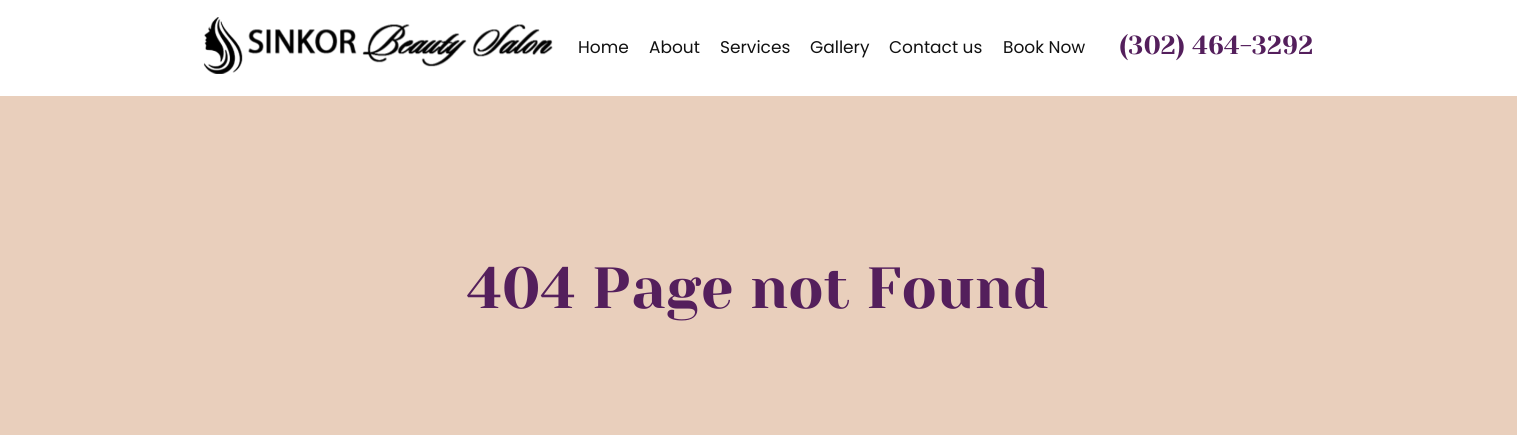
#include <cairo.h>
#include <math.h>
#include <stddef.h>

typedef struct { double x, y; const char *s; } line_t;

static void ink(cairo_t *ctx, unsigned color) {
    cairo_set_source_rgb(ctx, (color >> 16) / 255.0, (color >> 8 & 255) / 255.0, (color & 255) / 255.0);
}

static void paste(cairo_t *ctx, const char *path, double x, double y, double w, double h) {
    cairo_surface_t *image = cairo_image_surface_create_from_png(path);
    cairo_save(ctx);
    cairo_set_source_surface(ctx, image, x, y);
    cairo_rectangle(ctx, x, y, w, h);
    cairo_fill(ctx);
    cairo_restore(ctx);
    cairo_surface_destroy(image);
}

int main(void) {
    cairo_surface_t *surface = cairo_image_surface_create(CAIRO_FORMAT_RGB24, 1517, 435);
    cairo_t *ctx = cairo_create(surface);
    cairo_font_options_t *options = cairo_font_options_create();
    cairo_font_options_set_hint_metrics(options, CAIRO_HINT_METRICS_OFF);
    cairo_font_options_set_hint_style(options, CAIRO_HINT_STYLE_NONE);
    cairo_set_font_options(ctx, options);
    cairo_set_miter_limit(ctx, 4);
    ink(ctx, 0xFFFFFF);
    cairo_paint(ctx);
    paste(ctx, "media/1.png", 203, 17, 350, 57);
    cairo_select_font_face(ctx, "Poppins", CAIRO_FONT_SLANT_NORMAL, CAIRO_FONT_WEIGHT_NORMAL);
    cairo_set_font_size(ctx, 17);
    ink(ctx, 0x111111);
    {
        static const line_t items[] = {
            {578, 53, "Home"},
            {649, 53, "About"},
            {720, 53, "Services"},
            {810, 53, "Gallery"},
            {889, 53, "Contact us"},
            {1003, 53, "Book Now"},
        };
        for (size_t i = 0; i < sizeof items / sizeof *items; i++) {
            cairo_move_to(ctx, items[i].x, items[i].y);
            cairo_show_text(ctx, items[i].s);
        }
    }
    cairo_select_font_face(ctx, "Yeseva One", CAIRO_FONT_SLANT_NORMAL, CAIRO_FONT_WEIGHT_NORMAL);
    cairo_set_font_size(ctx, 26);
    ink(ctx, 0x541F5C);
    cairo_move_to(ctx, 1119, 54);
    cairo_show_text(ctx, "(302) 464-3292");
    ink(ctx, 0xE9CFBC);
    cairo_rectangle(ctx, 0, 96, 1517, 339);
    cairo_fill(ctx);
    cairo_set_font_size(ctx, 58);
    ink(ctx, 0x541F5C);
    cairo_move_to(ctx, 467, 308);
    cairo_show_text(ctx, "404 Page not Found");
    cairo_surface_write_to_png(surface, "image.png");
    cairo_font_options_destroy(options);
    cairo_destroy(ctx);
    cairo_surface_destroy(surface);
    return 0;
}
